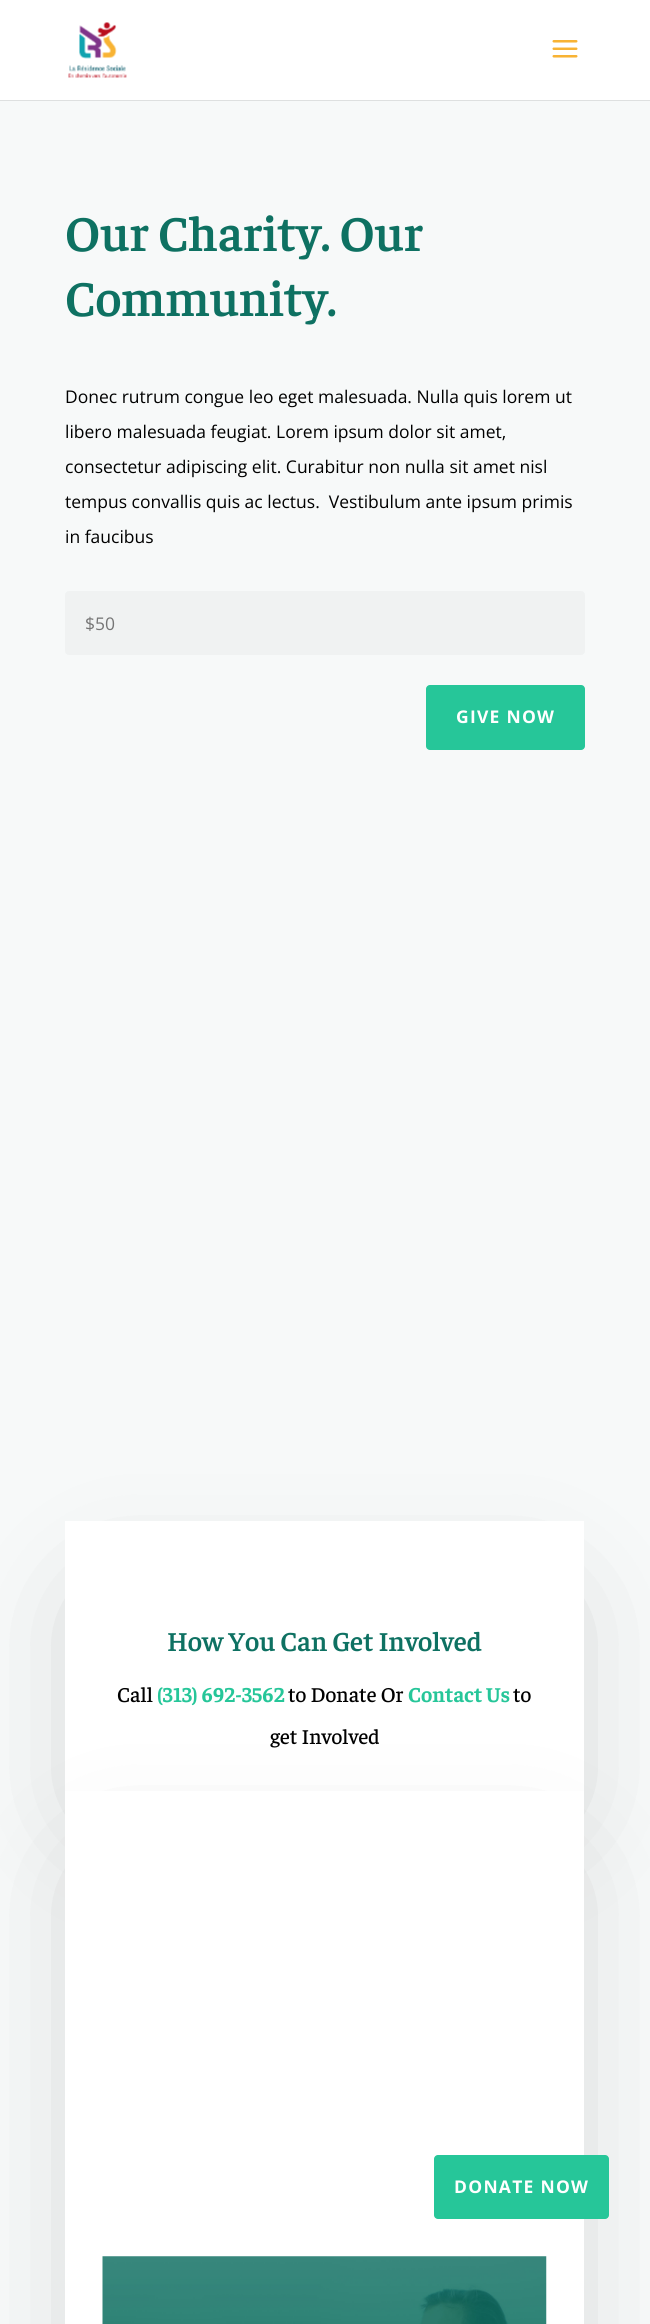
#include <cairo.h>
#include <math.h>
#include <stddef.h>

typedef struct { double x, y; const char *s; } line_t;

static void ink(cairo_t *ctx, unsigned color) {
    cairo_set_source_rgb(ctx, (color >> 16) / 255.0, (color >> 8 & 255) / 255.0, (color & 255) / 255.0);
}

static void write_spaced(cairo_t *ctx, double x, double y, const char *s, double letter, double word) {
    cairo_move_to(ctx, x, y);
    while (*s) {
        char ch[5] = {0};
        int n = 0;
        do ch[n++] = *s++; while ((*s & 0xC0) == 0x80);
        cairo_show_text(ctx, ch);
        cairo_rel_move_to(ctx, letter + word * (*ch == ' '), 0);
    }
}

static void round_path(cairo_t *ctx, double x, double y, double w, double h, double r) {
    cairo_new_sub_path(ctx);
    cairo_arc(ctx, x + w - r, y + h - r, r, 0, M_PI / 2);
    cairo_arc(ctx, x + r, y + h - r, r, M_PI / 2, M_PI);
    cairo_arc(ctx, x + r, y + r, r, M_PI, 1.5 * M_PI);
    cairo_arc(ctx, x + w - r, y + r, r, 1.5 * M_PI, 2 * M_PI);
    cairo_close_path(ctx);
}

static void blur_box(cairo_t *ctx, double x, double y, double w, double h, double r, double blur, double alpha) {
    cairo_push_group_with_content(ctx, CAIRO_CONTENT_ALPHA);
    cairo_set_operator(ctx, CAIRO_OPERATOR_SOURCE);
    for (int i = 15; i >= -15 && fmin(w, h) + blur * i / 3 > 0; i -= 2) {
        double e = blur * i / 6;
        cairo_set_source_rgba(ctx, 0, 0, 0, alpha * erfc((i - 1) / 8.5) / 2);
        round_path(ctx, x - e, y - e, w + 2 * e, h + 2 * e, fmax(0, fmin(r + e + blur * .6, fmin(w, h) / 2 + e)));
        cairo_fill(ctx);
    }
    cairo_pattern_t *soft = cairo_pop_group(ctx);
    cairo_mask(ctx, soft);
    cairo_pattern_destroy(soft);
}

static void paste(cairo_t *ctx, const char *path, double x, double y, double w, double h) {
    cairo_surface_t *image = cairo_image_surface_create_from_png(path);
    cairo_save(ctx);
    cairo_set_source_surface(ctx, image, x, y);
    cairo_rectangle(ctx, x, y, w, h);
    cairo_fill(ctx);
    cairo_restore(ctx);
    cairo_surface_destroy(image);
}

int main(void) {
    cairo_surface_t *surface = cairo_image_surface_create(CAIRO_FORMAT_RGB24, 650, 2324);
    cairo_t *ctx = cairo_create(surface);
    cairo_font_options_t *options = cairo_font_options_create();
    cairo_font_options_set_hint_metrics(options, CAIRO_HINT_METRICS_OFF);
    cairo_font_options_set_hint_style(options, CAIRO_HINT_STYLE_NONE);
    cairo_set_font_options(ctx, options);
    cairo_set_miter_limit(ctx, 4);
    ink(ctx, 0xF7F9F9);
    cairo_paint(ctx);
    ink(ctx, 0xDEE0E0);
    cairo_rectangle(ctx, 0, 100, 650, 1);
    cairo_fill(ctx);
    ink(ctx, 0xFFFFFF);
    cairo_rectangle(ctx, 0, 0, 650, 100);
    cairo_fill(ctx);
    paste(ctx, "media/1.png", 68, 22, 59, 56);
    paste(ctx, "media/2.png", 552, 40, 26, 18);
    cairo_select_font_face(ctx, "Faustina SemiBold", CAIRO_FONT_SLANT_NORMAL, CAIRO_FONT_WEIGHT_NORMAL);
    cairo_set_font_size(ctx, 50);
    ink(ctx, 0x0E7162);
    cairo_move_to(ctx, 65, 251);
    cairo_show_text(ctx, "Our Charity. Our");
    cairo_move_to(ctx, 65, 316);
    cairo_show_text(ctx, "Community.");
    cairo_select_font_face(ctx, "Open Sans", CAIRO_FONT_SLANT_NORMAL, CAIRO_FONT_WEIGHT_NORMAL);
    cairo_set_font_size(ctx, 17.5);
    ink(ctx, 0x000000);
    {
        static const line_t items[] = {
            {65, 403, "Donec rutrum congue leo eget malesuada. Nulla quis lorem ut"},
            {65, 438, "libero malesuada feugiat. Lorem ipsum dolor sit amet,"},
            {65, 473, "consectetur adipiscing elit. Curabitur non nulla sit amet nisl"},
            {65, 508, "tempus convallis quis ac lectus.  Vestibulum ante ipsum primis"},
            {65, 543, "in faucibus"},
        };
        for (size_t i = 0; i < sizeof items / sizeof *items; i++) {
            cairo_move_to(ctx, items[i].x, items[i].y);
            cairo_show_text(ctx, items[i].s);
        }
    }
    ink(ctx, 0xF0F2F2);
    round_path(ctx, 65, 591, 520, 64, 4);
    cairo_fill(ctx);
    ink(ctx, 0x757575);
    cairo_move_to(ctx, 85, 630);
    cairo_show_text(ctx, "$50");
    ink(ctx, 0x26C699);
    round_path(ctx, 426, 685, 159, 65, 4);
    cairo_fill(ctx);
    cairo_select_font_face(ctx, "Open Sans", CAIRO_FONT_SLANT_NORMAL, CAIRO_FONT_WEIGHT_BOLD);
    ink(ctx, 0xFFFFFF);
    write_spaced(ctx, 456, 723, "GIVE NOW", 1.25, 0);
    ink(ctx, 0x000000);
    blur_box(ctx, 103, 1609, 443, 195, 0, 62.5, 0.22);
    ink(ctx, 0xFFFFFF);
    cairo_rectangle(ctx, 65, 1521, 519, 270);
    cairo_fill(ctx);
    cairo_select_font_face(ctx, "Faustina SemiBold", CAIRO_FONT_SLANT_NORMAL, CAIRO_FONT_WEIGHT_NORMAL);
    cairo_set_font_size(ctx, 27.5);
    ink(ctx, 0x0E7162);
    cairo_move_to(ctx, 167, 1651);
    cairo_show_text(ctx, "How You Can Get Involved");
    ink(ctx, 0x000000);
    blur_box(ctx, 103, 1879, 443, 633, 0, 62.5, 0.22);
    cairo_select_font_face(ctx, "Faustina Light", CAIRO_FONT_SLANT_NORMAL, CAIRO_FONT_WEIGHT_NORMAL);
    cairo_set_font_size(ctx, 21.25);
    ink(ctx, 0x000000);
    cairo_move_to(ctx, 117, 1702);
    cairo_show_text(ctx, "Call");
    cairo_select_font_face(ctx, "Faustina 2 Light", CAIRO_FONT_SLANT_NORMAL, CAIRO_FONT_WEIGHT_NORMAL);
    ink(ctx, 0x26C699);
    cairo_move_to(ctx, 157, 1702);
    cairo_show_text(ctx, "(313) 692-3562");
    cairo_select_font_face(ctx, "Faustina Light", CAIRO_FONT_SLANT_NORMAL, CAIRO_FONT_WEIGHT_NORMAL);
    ink(ctx, 0x000000);
    cairo_move_to(ctx, 288, 1702);
    cairo_show_text(ctx, "to Donate Or");
    cairo_select_font_face(ctx, "Faustina 2 Light", CAIRO_FONT_SLANT_NORMAL, CAIRO_FONT_WEIGHT_NORMAL);
    ink(ctx, 0x26C699);
    cairo_move_to(ctx, 408, 1702);
    cairo_show_text(ctx, "Contact Us");
    cairo_select_font_face(ctx, "Faustina Light", CAIRO_FONT_SLANT_NORMAL, CAIRO_FONT_WEIGHT_NORMAL);
    ink(ctx, 0x000000);
    cairo_move_to(ctx, 513, 1702);
    cairo_show_text(ctx, "to");
    cairo_move_to(ctx, 270, 1744);
    cairo_show_text(ctx, "get Involved");
    ink(ctx, 0xFFFFFF);
    cairo_rectangle(ctx, 65, 1791, 519, 533);
    cairo_fill(ctx);
    ink(ctx, 0x26C699);
    round_path(ctx, 434, 2155, 175, 64, 4);
    cairo_fill(ctx);
    cairo_select_font_face(ctx, "Open Sans", CAIRO_FONT_SLANT_NORMAL, CAIRO_FONT_WEIGHT_BOLD);
    cairo_set_font_size(ctx, 17.5);
    ink(ctx, 0xFFFFFF);
    write_spaced(ctx, 454, 2193, "DONATE NOW", 1.25, 0);
    paste(ctx, "media/3.png", 102, 2256, 445, 68);
    cairo_surface_write_to_png(surface, "image.png");
    cairo_font_options_destroy(options);
    cairo_destroy(ctx);
    cairo_surface_destroy(surface);
    return 0;
}
